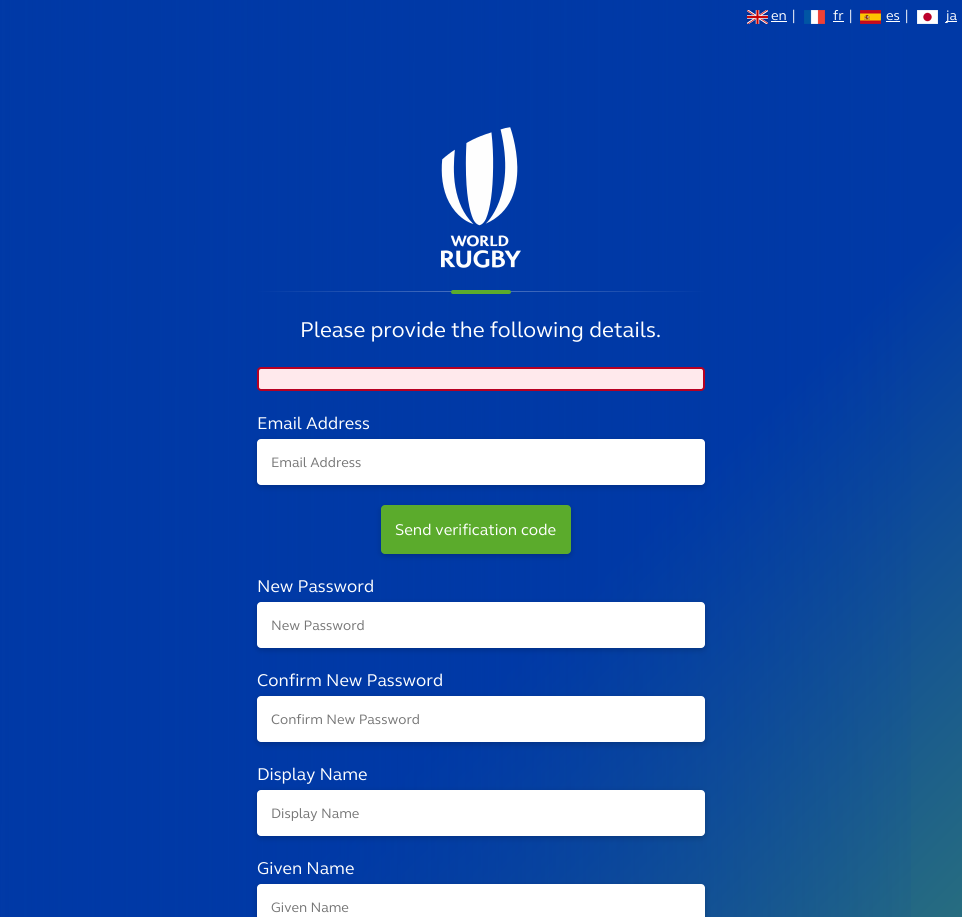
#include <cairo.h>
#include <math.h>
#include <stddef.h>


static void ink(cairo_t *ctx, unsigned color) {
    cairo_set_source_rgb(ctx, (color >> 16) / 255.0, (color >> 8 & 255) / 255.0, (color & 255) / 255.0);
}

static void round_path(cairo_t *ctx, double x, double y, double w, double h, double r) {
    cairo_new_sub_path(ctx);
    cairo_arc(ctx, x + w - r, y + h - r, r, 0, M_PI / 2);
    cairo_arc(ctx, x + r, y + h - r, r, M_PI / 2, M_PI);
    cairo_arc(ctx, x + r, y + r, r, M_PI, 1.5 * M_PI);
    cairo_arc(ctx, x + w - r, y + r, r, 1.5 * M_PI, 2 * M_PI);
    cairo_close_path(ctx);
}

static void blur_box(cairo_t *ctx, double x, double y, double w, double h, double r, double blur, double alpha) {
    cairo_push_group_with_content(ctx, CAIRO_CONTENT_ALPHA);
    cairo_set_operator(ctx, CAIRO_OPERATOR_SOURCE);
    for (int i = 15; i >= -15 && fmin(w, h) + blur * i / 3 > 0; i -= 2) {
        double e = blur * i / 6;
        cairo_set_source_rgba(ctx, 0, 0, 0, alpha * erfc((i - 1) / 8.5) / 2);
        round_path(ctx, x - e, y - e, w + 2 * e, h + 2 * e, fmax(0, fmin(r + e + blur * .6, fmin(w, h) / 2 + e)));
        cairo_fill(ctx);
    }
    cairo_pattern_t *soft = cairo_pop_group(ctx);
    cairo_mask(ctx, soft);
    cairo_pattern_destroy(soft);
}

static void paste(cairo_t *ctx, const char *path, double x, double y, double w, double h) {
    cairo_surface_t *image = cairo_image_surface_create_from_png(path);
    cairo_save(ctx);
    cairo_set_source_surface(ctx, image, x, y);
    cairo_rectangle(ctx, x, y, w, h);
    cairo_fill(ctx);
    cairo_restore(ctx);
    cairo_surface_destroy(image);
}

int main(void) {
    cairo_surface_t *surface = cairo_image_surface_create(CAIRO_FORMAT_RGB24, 962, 917);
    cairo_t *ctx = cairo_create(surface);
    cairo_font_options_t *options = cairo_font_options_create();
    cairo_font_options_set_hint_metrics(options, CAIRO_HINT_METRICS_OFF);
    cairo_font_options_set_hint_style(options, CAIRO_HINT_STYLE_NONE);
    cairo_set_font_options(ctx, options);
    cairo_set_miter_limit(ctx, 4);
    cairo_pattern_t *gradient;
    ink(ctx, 0xFFFFFF);
    cairo_paint(ctx);
    gradient = cairo_pattern_create_linear(-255, 255, 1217, 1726);
    cairo_pattern_add_color_stop_rgba(gradient, 0.4, 0, 0.224, 0.651, 1);
    cairo_pattern_add_color_stop_rgba(gradient, 1, 0.384, 0.733, 0.275, 1);
    cairo_set_source(ctx, gradient);
    cairo_pattern_destroy(gradient);
    cairo_rectangle(ctx, 5, 0, 957, 917);
    cairo_fill(ctx);
    gradient = cairo_pattern_create_linear(962, 459, 0, 458);
    cairo_pattern_add_color_stop_rgba(gradient, 0, 0, 0.224, 0.651, 0);
    cairo_pattern_add_color_stop_rgba(gradient, 1, 0, 0.224, 0.651, 1);
    cairo_set_source(ctx, gradient);
    cairo_pattern_destroy(gradient);
    cairo_rectangle(ctx, 0, 0, 911, 917);
    cairo_fill(ctx);
    paste(ctx, "media/1.png", 747, 10, 21, 14);
    cairo_select_font_face(ctx, "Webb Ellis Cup", CAIRO_FONT_SLANT_NORMAL, CAIRO_FONT_WEIGHT_NORMAL);
    cairo_set_font_size(ctx, 14);
    ink(ctx, 0xFFFFFF);
    cairo_move_to(ctx, 771, 20);
    cairo_show_text(ctx, "en");
    cairo_rectangle(ctx, 771, 21, 16, 1);
    cairo_fill(ctx);
    cairo_move_to(ctx, 792, 20);
    cairo_show_text(ctx, "|");
    paste(ctx, "media/2.png", 804, 10, 21, 14);
    cairo_move_to(ctx, 833, 20);
    cairo_show_text(ctx, "fr");
    cairo_rectangle(ctx, 833, 21, 11, 1);
    cairo_fill(ctx);
    cairo_move_to(ctx, 849, 20);
    cairo_show_text(ctx, "|");
    paste(ctx, "media/3.png", 860, 10, 21, 14);
    cairo_move_to(ctx, 886, 20);
    cairo_show_text(ctx, "es");
    cairo_rectangle(ctx, 886, 21, 14, 1);
    cairo_fill(ctx);
    cairo_move_to(ctx, 905, 20);
    cairo_show_text(ctx, "|");
    paste(ctx, "media/4.png", 917, 10, 21, 14);
    cairo_rectangle(ctx, 946, 21, 11, 1);
    cairo_fill(ctx);
    cairo_move_to(ctx, 946, 20);
    cairo_show_text(ctx, "ja");
    paste(ctx, "media/5.png", 441, 127, 80, 141);
    gradient = cairo_pattern_create_linear(257, 292, 705, 292);
    cairo_pattern_add_color_stop_rgba(gradient, 0, 0, 0.224, 0.651, 1);
    cairo_pattern_add_color_stop_rgba(gradient, 0.5, 0.302, 0.455, 0.757, 1);
    cairo_pattern_add_color_stop_rgba(gradient, 1, 0, 0.224, 0.651, 1);
    cairo_set_source(ctx, gradient);
    cairo_pattern_destroy(gradient);
    cairo_rectangle(ctx, 257, 291, 448, 1);
    cairo_fill(ctx);
    ink(ctx, 0x5BAB2C);
    round_path(ctx, 451, 290, 60, 4, 2);
    cairo_fill(ctx);
    cairo_set_font_size(ctx, 22);
    ink(ctx, 0xFFFFFF);
    cairo_move_to(ctx, 300, 337);
    cairo_show_text(ctx, "Please provide the following details.");
    ink(ctx, 0xFFE9EC);
    round_path(ctx, 258, 368, 446, 22, 3);
    cairo_fill_preserve(ctx);
    ink(ctx, 0xB70022);
    cairo_stroke(ctx);
    cairo_set_font_size(ctx, 17.5);
    ink(ctx, 0xFFFFFF);
    cairo_move_to(ctx, 257, 429);
    cairo_show_text(ctx, "Email Address");
    ink(ctx, 0x000000);
    blur_box(ctx, 257, 441, 448, 46, 4, 3, 0.2);
    ink(ctx, 0xFFFFFF);
    round_path(ctx, 257, 439, 448, 46, 4);
    cairo_fill(ctx);
    cairo_set_font_size(ctx, 14);
    ink(ctx, 0x757575);
    cairo_move_to(ctx, 271, 467);
    cairo_show_text(ctx, "Email Address");
    ink(ctx, 0x000000);
    blur_box(ctx, 381, 507, 190, 49, 4, 3, 0.2);
    ink(ctx, 0x5BAB2C);
    round_path(ctx, 381, 505, 190, 49, 4);
    cairo_fill(ctx);
    cairo_set_font_size(ctx, 16);
    ink(ctx, 0xFFFFFF);
    cairo_move_to(ctx, 395, 535);
    cairo_show_text(ctx, "Send verification code");
    cairo_set_font_size(ctx, 17.5);
    cairo_move_to(ctx, 257, 592);
    cairo_show_text(ctx, "New Password");
    ink(ctx, 0x000000);
    blur_box(ctx, 257, 604, 448, 46, 4, 3, 0.2);
    ink(ctx, 0xFFFFFF);
    round_path(ctx, 257, 602, 448, 46, 4);
    cairo_fill(ctx);
    cairo_set_font_size(ctx, 14);
    ink(ctx, 0x757575);
    cairo_move_to(ctx, 271, 630);
    cairo_show_text(ctx, "New Password");
    cairo_set_font_size(ctx, 17.5);
    ink(ctx, 0xFFFFFF);
    cairo_move_to(ctx, 257, 686);
    cairo_show_text(ctx, "Confirm New Password");
    ink(ctx, 0x000000);
    blur_box(ctx, 257, 698, 448, 46, 4, 3, 0.2);
    ink(ctx, 0xFFFFFF);
    round_path(ctx, 257, 696, 448, 46, 4);
    cairo_fill(ctx);
    cairo_set_font_size(ctx, 14);
    ink(ctx, 0x757575);
    cairo_move_to(ctx, 271, 724);
    cairo_show_text(ctx, "Confirm New Password");
    cairo_set_font_size(ctx, 17.5);
    ink(ctx, 0xFFFFFF);
    cairo_move_to(ctx, 257, 780);
    cairo_show_text(ctx, "Display Name");
    ink(ctx, 0x000000);
    blur_box(ctx, 257, 792, 448, 46, 4, 3, 0.2);
    ink(ctx, 0xFFFFFF);
    round_path(ctx, 257, 790, 448, 46, 4);
    cairo_fill(ctx);
    cairo_set_font_size(ctx, 14);
    ink(ctx, 0x757575);
    cairo_move_to(ctx, 271, 818);
    cairo_show_text(ctx, "Display Name");
    cairo_set_font_size(ctx, 17.5);
    ink(ctx, 0xFFFFFF);
    cairo_move_to(ctx, 257, 874);
    cairo_show_text(ctx, "Given Name");
    ink(ctx, 0x000000);
    blur_box(ctx, 257, 886, 448, 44, 4, 3, 0.2);
    ink(ctx, 0xFFFFFF);
    round_path(ctx, 257, 884, 448, 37, 4);
    cairo_fill(ctx);
    cairo_set_font_size(ctx, 14);
    ink(ctx, 0x757575);
    cairo_move_to(ctx, 271, 912);
    cairo_show_text(ctx, "Given Name");
    cairo_surface_write_to_png(surface, "image.png");
    cairo_font_options_destroy(options);
    cairo_destroy(ctx);
    cairo_surface_destroy(surface);
    return 0;
}
